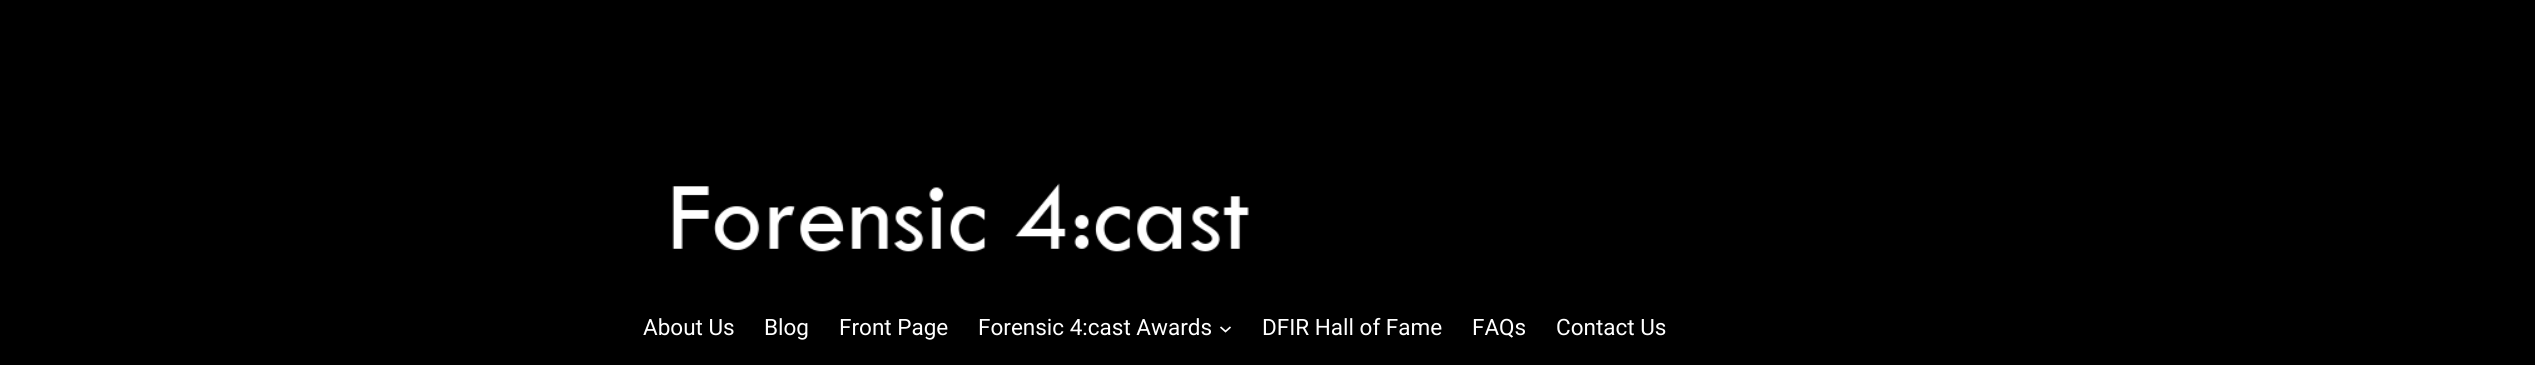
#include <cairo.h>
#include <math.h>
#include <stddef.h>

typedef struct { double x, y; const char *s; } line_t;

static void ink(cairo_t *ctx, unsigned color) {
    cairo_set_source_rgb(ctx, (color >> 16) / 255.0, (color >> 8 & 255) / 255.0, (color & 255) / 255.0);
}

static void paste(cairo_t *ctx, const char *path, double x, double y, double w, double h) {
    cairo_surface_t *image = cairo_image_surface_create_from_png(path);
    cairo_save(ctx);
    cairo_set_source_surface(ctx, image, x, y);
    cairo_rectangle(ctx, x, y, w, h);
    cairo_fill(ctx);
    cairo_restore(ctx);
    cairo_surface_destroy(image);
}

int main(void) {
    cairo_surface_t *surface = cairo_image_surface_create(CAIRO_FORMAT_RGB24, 2535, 365);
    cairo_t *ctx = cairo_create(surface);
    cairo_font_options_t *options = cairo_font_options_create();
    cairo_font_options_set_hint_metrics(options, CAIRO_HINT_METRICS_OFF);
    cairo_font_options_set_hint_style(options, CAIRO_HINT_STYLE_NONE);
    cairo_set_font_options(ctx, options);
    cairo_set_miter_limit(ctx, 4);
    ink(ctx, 0x000000);
    cairo_paint(ctx);
    paste(ctx, "media/1.png", 672, 183, 577, 69);
    cairo_select_font_face(ctx, "Roboto", CAIRO_FONT_SLANT_NORMAL, CAIRO_FONT_WEIGHT_NORMAL);
    cairo_set_font_size(ctx, 22.5);
    ink(ctx, 0xFFFFFF);
    {
        static const line_t items[] = {
            {643, 335, "About Us"},
            {764, 335, "Blog"},
            {839, 335, "Front Page"},
            {978, 335, "Forensic 4:cast Awards"},
        };
        for (size_t i = 0; i < sizeof items / sizeof *items; i++) {
            cairo_move_to(ctx, items[i].x, items[i].y);
            cairo_show_text(ctx, items[i].s);
        }
    }
    cairo_new_path(ctx);
    cairo_move_to(ctx, 1220.5, 327);
    cairo_line_to(ctx, 1225.5, 331.5);
    cairo_line_to(ctx, 1230.5, 327);
    cairo_set_line_width(ctx, 1.7);
    cairo_stroke(ctx);
    {
        static const line_t items[] = {
            {1262, 335, "DFIR Hall of Fame"},
            {1472, 335, "FAQs"},
            {1556, 335, "Contact Us"},
        };
        for (size_t i = 0; i < sizeof items / sizeof *items; i++) {
            cairo_move_to(ctx, items[i].x, items[i].y);
            cairo_show_text(ctx, items[i].s);
        }
    }
    cairo_surface_write_to_png(surface, "image.png");
    cairo_font_options_destroy(options);
    cairo_destroy(ctx);
    cairo_surface_destroy(surface);
    return 0;
}
